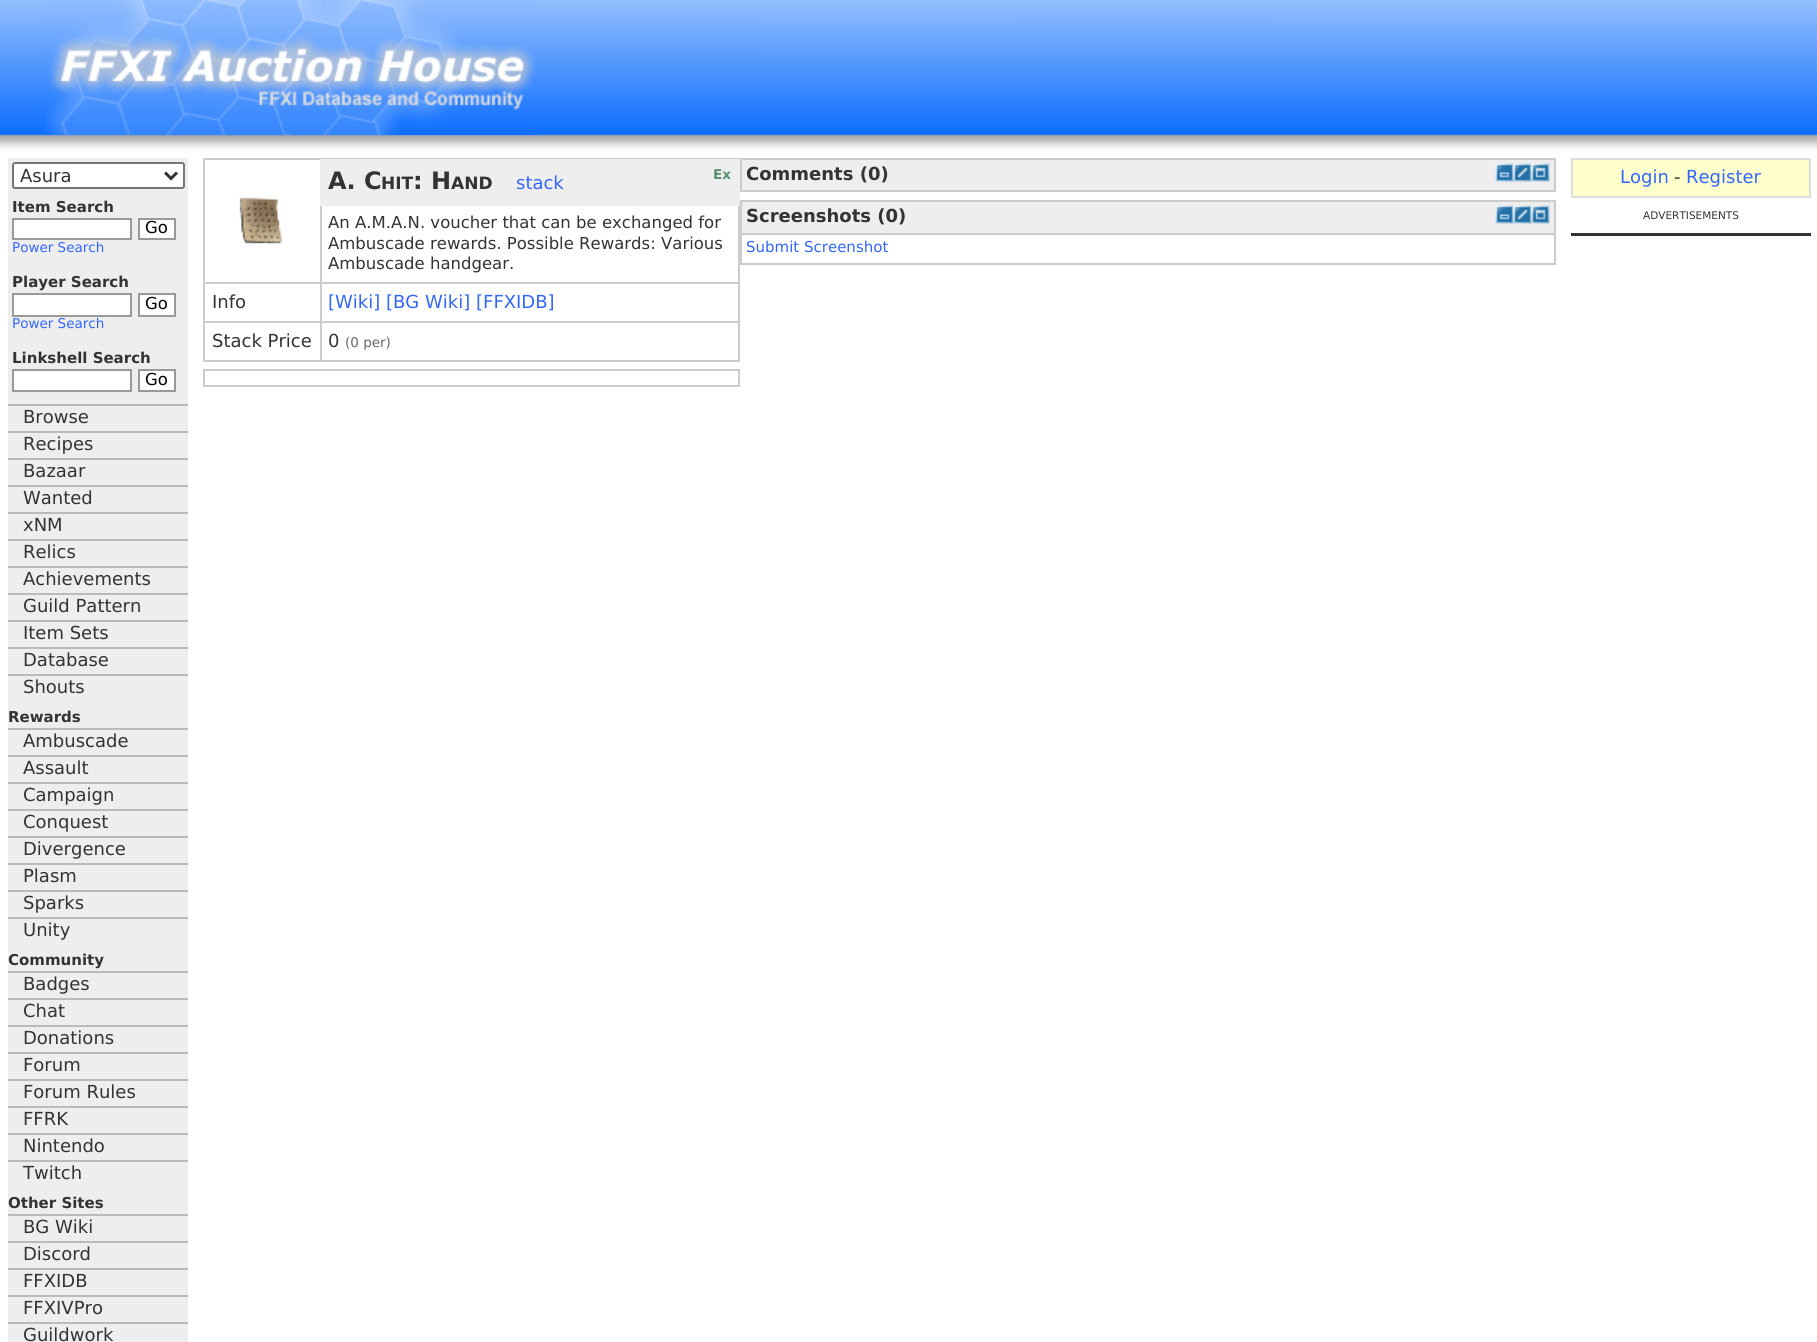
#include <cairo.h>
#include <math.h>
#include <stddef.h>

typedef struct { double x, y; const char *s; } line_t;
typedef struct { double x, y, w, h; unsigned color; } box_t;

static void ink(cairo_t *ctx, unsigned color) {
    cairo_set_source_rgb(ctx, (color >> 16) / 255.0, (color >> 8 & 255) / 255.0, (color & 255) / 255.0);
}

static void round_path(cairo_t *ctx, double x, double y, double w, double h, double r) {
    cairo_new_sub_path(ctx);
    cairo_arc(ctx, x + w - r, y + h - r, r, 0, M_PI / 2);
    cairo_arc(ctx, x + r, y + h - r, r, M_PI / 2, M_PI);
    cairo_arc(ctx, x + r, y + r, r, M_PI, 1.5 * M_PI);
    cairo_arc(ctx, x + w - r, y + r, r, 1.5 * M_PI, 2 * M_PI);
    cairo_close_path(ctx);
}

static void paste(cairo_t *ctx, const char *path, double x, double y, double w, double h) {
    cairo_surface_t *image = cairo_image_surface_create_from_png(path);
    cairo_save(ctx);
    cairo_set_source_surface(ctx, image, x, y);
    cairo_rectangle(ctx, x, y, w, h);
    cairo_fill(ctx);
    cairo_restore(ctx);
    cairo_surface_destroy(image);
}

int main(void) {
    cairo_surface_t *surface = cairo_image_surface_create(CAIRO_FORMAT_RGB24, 1817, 1342);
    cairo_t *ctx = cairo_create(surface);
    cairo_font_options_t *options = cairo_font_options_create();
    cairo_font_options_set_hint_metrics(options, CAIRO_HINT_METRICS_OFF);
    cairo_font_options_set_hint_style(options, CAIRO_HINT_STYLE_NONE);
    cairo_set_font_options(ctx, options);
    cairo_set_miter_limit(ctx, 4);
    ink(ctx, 0xFFFFFF);
    cairo_paint(ctx);
    paste(ctx, "media/1.png", 0, 0, 1817, 150);
    paste(ctx, "media/2.png", 45, 0, 494, 135);
    ink(ctx, 0xEEEEEE);
    cairo_rectangle(ctx, 8, 158, 180, 1184);
    cairo_fill(ctx);
    ink(ctx, 0xFFFFFF);
    round_path(ctx, 13, 163, 171, 25, 2);
    cairo_fill_preserve(ctx);
    ink(ctx, 0x767676);
    cairo_stroke(ctx);
    cairo_new_path(ctx);
    cairo_move_to(ctx, 165, 172.5);
    cairo_line_to(ctx, 171, 178.5);
    cairo_line_to(ctx, 177, 172.5);
    ink(ctx, 0x333333);
    cairo_set_line_width(ctx, 3);
    cairo_stroke(ctx);
    cairo_select_font_face(ctx, "DejaVu Sans", CAIRO_FONT_SLANT_NORMAL, CAIRO_FONT_WEIGHT_NORMAL);
    cairo_set_font_size(ctx, 18);
    cairo_move_to(ctx, 20, 182);
    cairo_show_text(ctx, "Asura");
    cairo_select_font_face(ctx, "DejaVu Sans", CAIRO_FONT_SLANT_NORMAL, CAIRO_FONT_WEIGHT_BOLD);
    cairo_set_font_size(ctx, 15);
    cairo_move_to(ctx, 12, 212);
    cairo_show_text(ctx, "Item Search");
    ink(ctx, 0xFFFFFF);
    cairo_rectangle(ctx, 13, 219, 118, 20);
    cairo_fill_preserve(ctx);
    ink(ctx, 0x999999);
    cairo_set_line_width(ctx, 2);
    cairo_stroke(ctx);
    ink(ctx, 0xFFFFFF);
    cairo_rectangle(ctx, 139, 219, 36, 20);
    cairo_fill_preserve(ctx);
    ink(ctx, 0x999999);
    cairo_stroke(ctx);
    cairo_select_font_face(ctx, "DejaVu Sans", CAIRO_FONT_SLANT_NORMAL, CAIRO_FONT_WEIGHT_NORMAL);
    cairo_set_font_size(ctx, 16.5);
    ink(ctx, 0x000000);
    cairo_move_to(ctx, 145, 233);
    cairo_show_text(ctx, "Go");
    cairo_set_font_size(ctx, 13.5);
    ink(ctx, 0x3366FF);
    cairo_move_to(ctx, 12, 252);
    cairo_show_text(ctx, "Power Search");
    cairo_select_font_face(ctx, "DejaVu Sans", CAIRO_FONT_SLANT_NORMAL, CAIRO_FONT_WEIGHT_BOLD);
    cairo_set_font_size(ctx, 15);
    ink(ctx, 0x333333);
    cairo_move_to(ctx, 12, 287);
    cairo_show_text(ctx, "Player Search");
    ink(ctx, 0xFFFFFF);
    cairo_rectangle(ctx, 13, 294, 118, 22);
    cairo_fill_preserve(ctx);
    ink(ctx, 0x999999);
    cairo_stroke(ctx);
    ink(ctx, 0xFFFFFF);
    cairo_rectangle(ctx, 139, 294, 36, 22);
    cairo_fill_preserve(ctx);
    ink(ctx, 0x999999);
    cairo_stroke(ctx);
    cairo_select_font_face(ctx, "DejaVu Sans", CAIRO_FONT_SLANT_NORMAL, CAIRO_FONT_WEIGHT_NORMAL);
    cairo_set_font_size(ctx, 16.5);
    ink(ctx, 0x000000);
    cairo_move_to(ctx, 145, 309);
    cairo_show_text(ctx, "Go");
    cairo_set_font_size(ctx, 13.5);
    ink(ctx, 0x3366FF);
    cairo_move_to(ctx, 12, 328);
    cairo_show_text(ctx, "Power Search");
    cairo_select_font_face(ctx, "DejaVu Sans", CAIRO_FONT_SLANT_NORMAL, CAIRO_FONT_WEIGHT_BOLD);
    cairo_set_font_size(ctx, 15);
    ink(ctx, 0x333333);
    cairo_move_to(ctx, 12, 363);
    cairo_show_text(ctx, "Linkshell Search");
    ink(ctx, 0xFFFFFF);
    cairo_rectangle(ctx, 13, 370, 118, 21);
    cairo_fill_preserve(ctx);
    ink(ctx, 0x999999);
    cairo_stroke(ctx);
    ink(ctx, 0xFFFFFF);
    cairo_rectangle(ctx, 139, 370, 36, 21);
    cairo_fill_preserve(ctx);
    ink(ctx, 0x999999);
    cairo_stroke(ctx);
    cairo_select_font_face(ctx, "DejaVu Sans", CAIRO_FONT_SLANT_NORMAL, CAIRO_FONT_WEIGHT_NORMAL);
    cairo_set_font_size(ctx, 16.5);
    ink(ctx, 0x000000);
    cairo_move_to(ctx, 145, 385);
    cairo_show_text(ctx, "Go");
    ink(ctx, 0xBBBBBB);
    cairo_rectangle(ctx, 8, 404, 180, 2);
    cairo_fill(ctx);
    cairo_set_font_size(ctx, 18);
    ink(ctx, 0x333333);
    cairo_move_to(ctx, 23, 423);
    cairo_show_text(ctx, "Browse");
    ink(ctx, 0xBBBBBB);
    cairo_rectangle(ctx, 8, 431, 180, 2);
    cairo_fill(ctx);
    ink(ctx, 0x333333);
    cairo_move_to(ctx, 23, 450);
    cairo_show_text(ctx, "Recipes");
    ink(ctx, 0xBBBBBB);
    cairo_rectangle(ctx, 8, 458, 180, 2);
    cairo_fill(ctx);
    ink(ctx, 0x333333);
    cairo_move_to(ctx, 23, 477);
    cairo_show_text(ctx, "Bazaar");
    ink(ctx, 0xBBBBBB);
    cairo_rectangle(ctx, 8, 485, 180, 2);
    cairo_fill(ctx);
    ink(ctx, 0x333333);
    cairo_move_to(ctx, 23, 504);
    cairo_show_text(ctx, "Wanted");
    ink(ctx, 0xBBBBBB);
    cairo_rectangle(ctx, 8, 512, 180, 2);
    cairo_fill(ctx);
    ink(ctx, 0x333333);
    cairo_move_to(ctx, 23, 531);
    cairo_show_text(ctx, "xNM");
    ink(ctx, 0xBBBBBB);
    cairo_rectangle(ctx, 8, 539, 180, 2);
    cairo_fill(ctx);
    ink(ctx, 0x333333);
    cairo_move_to(ctx, 23, 558);
    cairo_show_text(ctx, "Relics");
    ink(ctx, 0xBBBBBB);
    cairo_rectangle(ctx, 8, 566, 180, 2);
    cairo_fill(ctx);
    ink(ctx, 0x333333);
    cairo_move_to(ctx, 23, 585);
    cairo_show_text(ctx, "Achievements");
    ink(ctx, 0xBBBBBB);
    cairo_rectangle(ctx, 8, 593, 180, 2);
    cairo_fill(ctx);
    ink(ctx, 0x333333);
    cairo_move_to(ctx, 23, 612);
    cairo_show_text(ctx, "Guild Pattern");
    ink(ctx, 0xBBBBBB);
    cairo_rectangle(ctx, 8, 620, 180, 2);
    cairo_fill(ctx);
    ink(ctx, 0x333333);
    cairo_move_to(ctx, 23, 639);
    cairo_show_text(ctx, "Item Sets");
    ink(ctx, 0xBBBBBB);
    cairo_rectangle(ctx, 8, 647, 180, 2);
    cairo_fill(ctx);
    ink(ctx, 0x333333);
    cairo_move_to(ctx, 23, 666);
    cairo_show_text(ctx, "Database");
    ink(ctx, 0xBBBBBB);
    cairo_rectangle(ctx, 8, 674, 180, 2);
    cairo_fill(ctx);
    ink(ctx, 0x333333);
    cairo_move_to(ctx, 23, 693);
    cairo_show_text(ctx, "Shouts");
    cairo_select_font_face(ctx, "DejaVu Sans", CAIRO_FONT_SLANT_NORMAL, CAIRO_FONT_WEIGHT_BOLD);
    cairo_set_font_size(ctx, 15);
    cairo_move_to(ctx, 8, 722);
    cairo_show_text(ctx, "Rewards");
    ink(ctx, 0xBBBBBB);
    cairo_rectangle(ctx, 8, 728, 180, 2);
    cairo_fill(ctx);
    cairo_select_font_face(ctx, "DejaVu Sans", CAIRO_FONT_SLANT_NORMAL, CAIRO_FONT_WEIGHT_NORMAL);
    cairo_set_font_size(ctx, 18);
    ink(ctx, 0x333333);
    cairo_move_to(ctx, 23, 747);
    cairo_show_text(ctx, "Ambuscade");
    ink(ctx, 0xBBBBBB);
    cairo_rectangle(ctx, 8, 755, 180, 2);
    cairo_fill(ctx);
    ink(ctx, 0x333333);
    cairo_move_to(ctx, 23, 774);
    cairo_show_text(ctx, "Assault");
    ink(ctx, 0xBBBBBB);
    cairo_rectangle(ctx, 8, 782, 180, 2);
    cairo_fill(ctx);
    ink(ctx, 0x333333);
    cairo_move_to(ctx, 23, 801);
    cairo_show_text(ctx, "Campaign");
    ink(ctx, 0xBBBBBB);
    cairo_rectangle(ctx, 8, 809, 180, 2);
    cairo_fill(ctx);
    ink(ctx, 0x333333);
    cairo_move_to(ctx, 23, 828);
    cairo_show_text(ctx, "Conquest");
    ink(ctx, 0xBBBBBB);
    cairo_rectangle(ctx, 8, 836, 180, 2);
    cairo_fill(ctx);
    ink(ctx, 0x333333);
    cairo_move_to(ctx, 23, 855);
    cairo_show_text(ctx, "Divergence");
    ink(ctx, 0xBBBBBB);
    cairo_rectangle(ctx, 8, 863, 180, 2);
    cairo_fill(ctx);
    ink(ctx, 0x333333);
    cairo_move_to(ctx, 23, 882);
    cairo_show_text(ctx, "Plasm");
    ink(ctx, 0xBBBBBB);
    cairo_rectangle(ctx, 8, 890, 180, 2);
    cairo_fill(ctx);
    ink(ctx, 0x333333);
    cairo_move_to(ctx, 23, 909);
    cairo_show_text(ctx, "Sparks");
    ink(ctx, 0xBBBBBB);
    cairo_rectangle(ctx, 8, 917, 180, 2);
    cairo_fill(ctx);
    ink(ctx, 0x333333);
    cairo_move_to(ctx, 23, 936);
    cairo_show_text(ctx, "Unity");
    cairo_select_font_face(ctx, "DejaVu Sans", CAIRO_FONT_SLANT_NORMAL, CAIRO_FONT_WEIGHT_BOLD);
    cairo_set_font_size(ctx, 15);
    cairo_move_to(ctx, 8, 965);
    cairo_show_text(ctx, "Community");
    ink(ctx, 0xBBBBBB);
    cairo_rectangle(ctx, 8, 971, 180, 2);
    cairo_fill(ctx);
    cairo_select_font_face(ctx, "DejaVu Sans", CAIRO_FONT_SLANT_NORMAL, CAIRO_FONT_WEIGHT_NORMAL);
    cairo_set_font_size(ctx, 18);
    ink(ctx, 0x333333);
    cairo_move_to(ctx, 23, 990);
    cairo_show_text(ctx, "Badges");
    ink(ctx, 0xBBBBBB);
    cairo_rectangle(ctx, 8, 998, 180, 2);
    cairo_fill(ctx);
    ink(ctx, 0x333333);
    cairo_move_to(ctx, 23, 1017);
    cairo_show_text(ctx, "Chat");
    ink(ctx, 0xBBBBBB);
    cairo_rectangle(ctx, 8, 1025, 180, 2);
    cairo_fill(ctx);
    ink(ctx, 0x333333);
    cairo_move_to(ctx, 23, 1044);
    cairo_show_text(ctx, "Donations");
    ink(ctx, 0xBBBBBB);
    cairo_rectangle(ctx, 8, 1052, 180, 2);
    cairo_fill(ctx);
    ink(ctx, 0x333333);
    cairo_move_to(ctx, 23, 1071);
    cairo_show_text(ctx, "Forum");
    ink(ctx, 0xBBBBBB);
    cairo_rectangle(ctx, 8, 1079, 180, 2);
    cairo_fill(ctx);
    ink(ctx, 0x333333);
    cairo_move_to(ctx, 23, 1098);
    cairo_show_text(ctx, "Forum Rules");
    ink(ctx, 0xBBBBBB);
    cairo_rectangle(ctx, 8, 1106, 180, 2);
    cairo_fill(ctx);
    ink(ctx, 0x333333);
    cairo_move_to(ctx, 23, 1125);
    cairo_show_text(ctx, "FFRK");
    ink(ctx, 0xBBBBBB);
    cairo_rectangle(ctx, 8, 1133, 180, 2);
    cairo_fill(ctx);
    ink(ctx, 0x333333);
    cairo_move_to(ctx, 23, 1152);
    cairo_show_text(ctx, "Nintendo");
    ink(ctx, 0xBBBBBB);
    cairo_rectangle(ctx, 8, 1160, 180, 2);
    cairo_fill(ctx);
    ink(ctx, 0x333333);
    cairo_move_to(ctx, 23, 1179);
    cairo_show_text(ctx, "Twitch");
    cairo_select_font_face(ctx, "DejaVu Sans", CAIRO_FONT_SLANT_NORMAL, CAIRO_FONT_WEIGHT_BOLD);
    cairo_set_font_size(ctx, 15);
    cairo_move_to(ctx, 8, 1208);
    cairo_show_text(ctx, "Other Sites");
    ink(ctx, 0xBBBBBB);
    cairo_rectangle(ctx, 8, 1214, 180, 2);
    cairo_fill(ctx);
    cairo_select_font_face(ctx, "DejaVu Sans", CAIRO_FONT_SLANT_NORMAL, CAIRO_FONT_WEIGHT_NORMAL);
    cairo_set_font_size(ctx, 18);
    ink(ctx, 0x333333);
    cairo_move_to(ctx, 23, 1233);
    cairo_show_text(ctx, "BG Wiki");
    ink(ctx, 0xBBBBBB);
    cairo_rectangle(ctx, 8, 1241, 180, 2);
    cairo_fill(ctx);
    ink(ctx, 0x333333);
    cairo_move_to(ctx, 23, 1260);
    cairo_show_text(ctx, "Discord");
    ink(ctx, 0xBBBBBB);
    cairo_rectangle(ctx, 8, 1268, 180, 2);
    cairo_fill(ctx);
    ink(ctx, 0x333333);
    cairo_move_to(ctx, 23, 1287);
    cairo_show_text(ctx, "FFXIDB");
    ink(ctx, 0xBBBBBB);
    cairo_rectangle(ctx, 8, 1295, 180, 2);
    cairo_fill(ctx);
    ink(ctx, 0x333333);
    cairo_move_to(ctx, 23, 1314);
    cairo_show_text(ctx, "FFXIVPro");
    ink(ctx, 0xBBBBBB);
    cairo_rectangle(ctx, 8, 1322, 180, 2);
    cairo_fill(ctx);
    ink(ctx, 0x333333);
    cairo_move_to(ctx, 23, 1341);
    cairo_show_text(ctx, "Guildwork");
    {
        static const box_t items[] = {
            {320, 158, 420, 1, 0xCCCCCC},
            {203, 158, 118, 2, 0xCCCCCC},
            {320, 282, 420, 2, 0xCCCCCC},
            {320, 321, 420, 2, 0xCCCCCC},
            {738, 321, 2, 41, 0xCCCCCC},
            {320, 360, 420, 2, 0xCCCCCC},
            {320, 321, 2, 41, 0xCCCCCC},
            {203, 321, 118, 2, 0xCCCCCC},
            {320, 282, 2, 41, 0xCCCCCC},
            {203, 282, 118, 2, 0xCCCCCC},
            {203, 360, 118, 2, 0xCCCCCC},
            {203, 321, 2, 41, 0xCCCCCC},
            {203, 282, 2, 41, 0xCCCCCC},
            {203, 158, 2, 126, 0xCCCCCC},
        };
        for (size_t i = 0; i < sizeof items / sizeof *items; i++) {
            ink(ctx, items[i].color);
            cairo_rectangle(ctx, items[i].x, items[i].y, items[i].w, items[i].h);
            cairo_fill(ctx);
        }
    }
    paste(ctx, "media/3.png", 239, 197, 44, 47);
    {
        static const box_t items[] = {
            {320, 204, 2, 80, 0xCCCCCC},
            {738, 204, 2, 119, 0xCCCCCC},
            {320, 159, 420, 47, 0xEEEEEE},
        };
        for (size_t i = 0; i < sizeof items / sizeof *items; i++) {
            ink(ctx, items[i].color);
            cairo_rectangle(ctx, items[i].x, items[i].y, items[i].w, items[i].h);
            cairo_fill(ctx);
        }
    }
    cairo_select_font_face(ctx, "DejaVu Sans", CAIRO_FONT_SLANT_NORMAL, CAIRO_FONT_WEIGHT_BOLD);
    cairo_set_font_size(ctx, 24);
    ink(ctx, 0x333333);
    cairo_move_to(ctx, 328, 189);
    cairo_show_text(ctx, "A. C");
    cairo_set_font_size(ctx, 17);
    cairo_move_to(ctx, 381, 189);
    cairo_show_text(ctx, "HIT");
    cairo_set_font_size(ctx, 24);
    cairo_move_to(ctx, 413, 189);
    cairo_show_text(ctx, ": H");
    cairo_set_font_size(ctx, 17);
    cairo_move_to(ctx, 451, 189);
    cairo_show_text(ctx, "AND");
    cairo_select_font_face(ctx, "DejaVu Sans", CAIRO_FONT_SLANT_NORMAL, CAIRO_FONT_WEIGHT_NORMAL);
    cairo_set_font_size(ctx, 18);
    ink(ctx, 0x3366FF);
    cairo_move_to(ctx, 516, 189);
    cairo_show_text(ctx, "stack");
    cairo_select_font_face(ctx, "DejaVu Sans", CAIRO_FONT_SLANT_NORMAL, CAIRO_FONT_WEIGHT_BOLD);
    cairo_set_font_size(ctx, 13.5);
    ink(ctx, 0x589070);
    cairo_move_to(ctx, 713, 179);
    cairo_show_text(ctx, "Ex");
    cairo_select_font_face(ctx, "DejaVu Sans", CAIRO_FONT_SLANT_NORMAL, CAIRO_FONT_WEIGHT_NORMAL);
    cairo_set_font_size(ctx, 16.5);
    ink(ctx, 0x333333);
    {
        static const line_t items[] = {
            {328, 228, "An A.M.A.N. voucher that can be exchanged for"},
            {328, 249, "Ambuscade rewards. Possible Rewards: Various"},
            {328, 269, "Ambuscade handgear."},
        };
        for (size_t i = 0; i < sizeof items / sizeof *items; i++) {
            cairo_move_to(ctx, items[i].x, items[i].y);
            cairo_show_text(ctx, items[i].s);
        }
    }
    cairo_set_font_size(ctx, 18);
    cairo_move_to(ctx, 212, 308);
    cairo_show_text(ctx, "Info");
    ink(ctx, 0x3366FF);
    cairo_move_to(ctx, 328, 308);
    cairo_show_text(ctx, "[Wiki] [BG Wiki] [FFXIDB]");
    ink(ctx, 0x333333);
    cairo_move_to(ctx, 212, 347);
    cairo_show_text(ctx, "Stack Price");
    cairo_move_to(ctx, 328, 347);
    cairo_show_text(ctx, "0");
    cairo_set_font_size(ctx, 13.5);
    ink(ctx, 0x666666);
    cairo_move_to(ctx, 345, 347);
    cairo_show_text(ctx, "(0 per)");
    cairo_rectangle(ctx, 204, 370, 535, 16);
    ink(ctx, 0xCCCCCC);
    cairo_stroke(ctx);
    ink(ctx, 0xEEEEEE);
    cairo_rectangle(ctx, 741, 159, 814, 32);
    cairo_fill_preserve(ctx);
    ink(ctx, 0xCCCCCC);
    cairo_stroke(ctx);
    cairo_select_font_face(ctx, "DejaVu Sans", CAIRO_FONT_SLANT_NORMAL, CAIRO_FONT_WEIGHT_BOLD);
    cairo_set_font_size(ctx, 18);
    ink(ctx, 0x333333);
    cairo_move_to(ctx, 746, 180);
    cairo_show_text(ctx, "Comments (0)");
    paste(ctx, "media/4.png", 1495, 163, 19, 19);
    paste(ctx, "media/5.png", 1513, 163, 19, 19);
    paste(ctx, "media/6.png", 1531, 163, 19, 19);
    {
        static const box_t items[] = {
            {742, 202, 812, 31, 0xEEEEEE},
            {740, 200, 816, 2, 0xCCCCCC},
            {740, 233, 816, 2, 0xCCCCCC},
            {1554, 233, 2, 31, 0xCCCCCC},
            {1554, 200, 2, 34, 0xCCCCCC},
            {740, 263, 816, 2, 0xCCCCCC},
            {740, 233, 2, 31, 0xCCCCCC},
            {740, 200, 2, 34, 0xCCCCCC},
        };
        for (size_t i = 0; i < sizeof items / sizeof *items; i++) {
            ink(ctx, items[i].color);
            cairo_rectangle(ctx, items[i].x, items[i].y, items[i].w, items[i].h);
            cairo_fill(ctx);
        }
    }
    ink(ctx, 0x333333);
    cairo_move_to(ctx, 746, 222);
    cairo_show_text(ctx, "Screenshots (0)");
    paste(ctx, "media/4.png", 1495, 205, 19, 19);
    paste(ctx, "media/5.png", 1513, 205, 19, 19);
    paste(ctx, "media/6.png", 1531, 205, 19, 19);
    cairo_select_font_face(ctx, "DejaVu Sans", CAIRO_FONT_SLANT_NORMAL, CAIRO_FONT_WEIGHT_NORMAL);
    cairo_set_font_size(ctx, 15);
    ink(ctx, 0x3366FF);
    cairo_move_to(ctx, 746, 252);
    cairo_show_text(ctx, "Submit Screenshot");
    ink(ctx, 0xFFFFCC);
    cairo_rectangle(ctx, 1572, 159, 238, 38);
    cairo_fill_preserve(ctx);
    ink(ctx, 0xDDDDDD);
    cairo_stroke(ctx);
    cairo_set_font_size(ctx, 18);
    ink(ctx, 0x3366FF);
    cairo_move_to(ctx, 1620, 183);
    cairo_show_text(ctx, "Login");
    ink(ctx, 0x333333);
    cairo_move_to(ctx, 1674, 183);
    cairo_show_text(ctx, "-");
    ink(ctx, 0x3366FF);
    cairo_move_to(ctx, 1686, 183);
    cairo_show_text(ctx, "Register");
    cairo_set_font_size(ctx, 10.5);
    ink(ctx, 0x333333);
    cairo_move_to(ctx, 1643, 219);
    cairo_show_text(ctx, "ADVERTISEMENTS");
    cairo_rectangle(ctx, 1571, 233, 240, 3);
    cairo_fill(ctx);
    cairo_surface_write_to_png(surface, "image.png");
    cairo_font_options_destroy(options);
    cairo_destroy(ctx);
    cairo_surface_destroy(surface);
    return 0;
}
